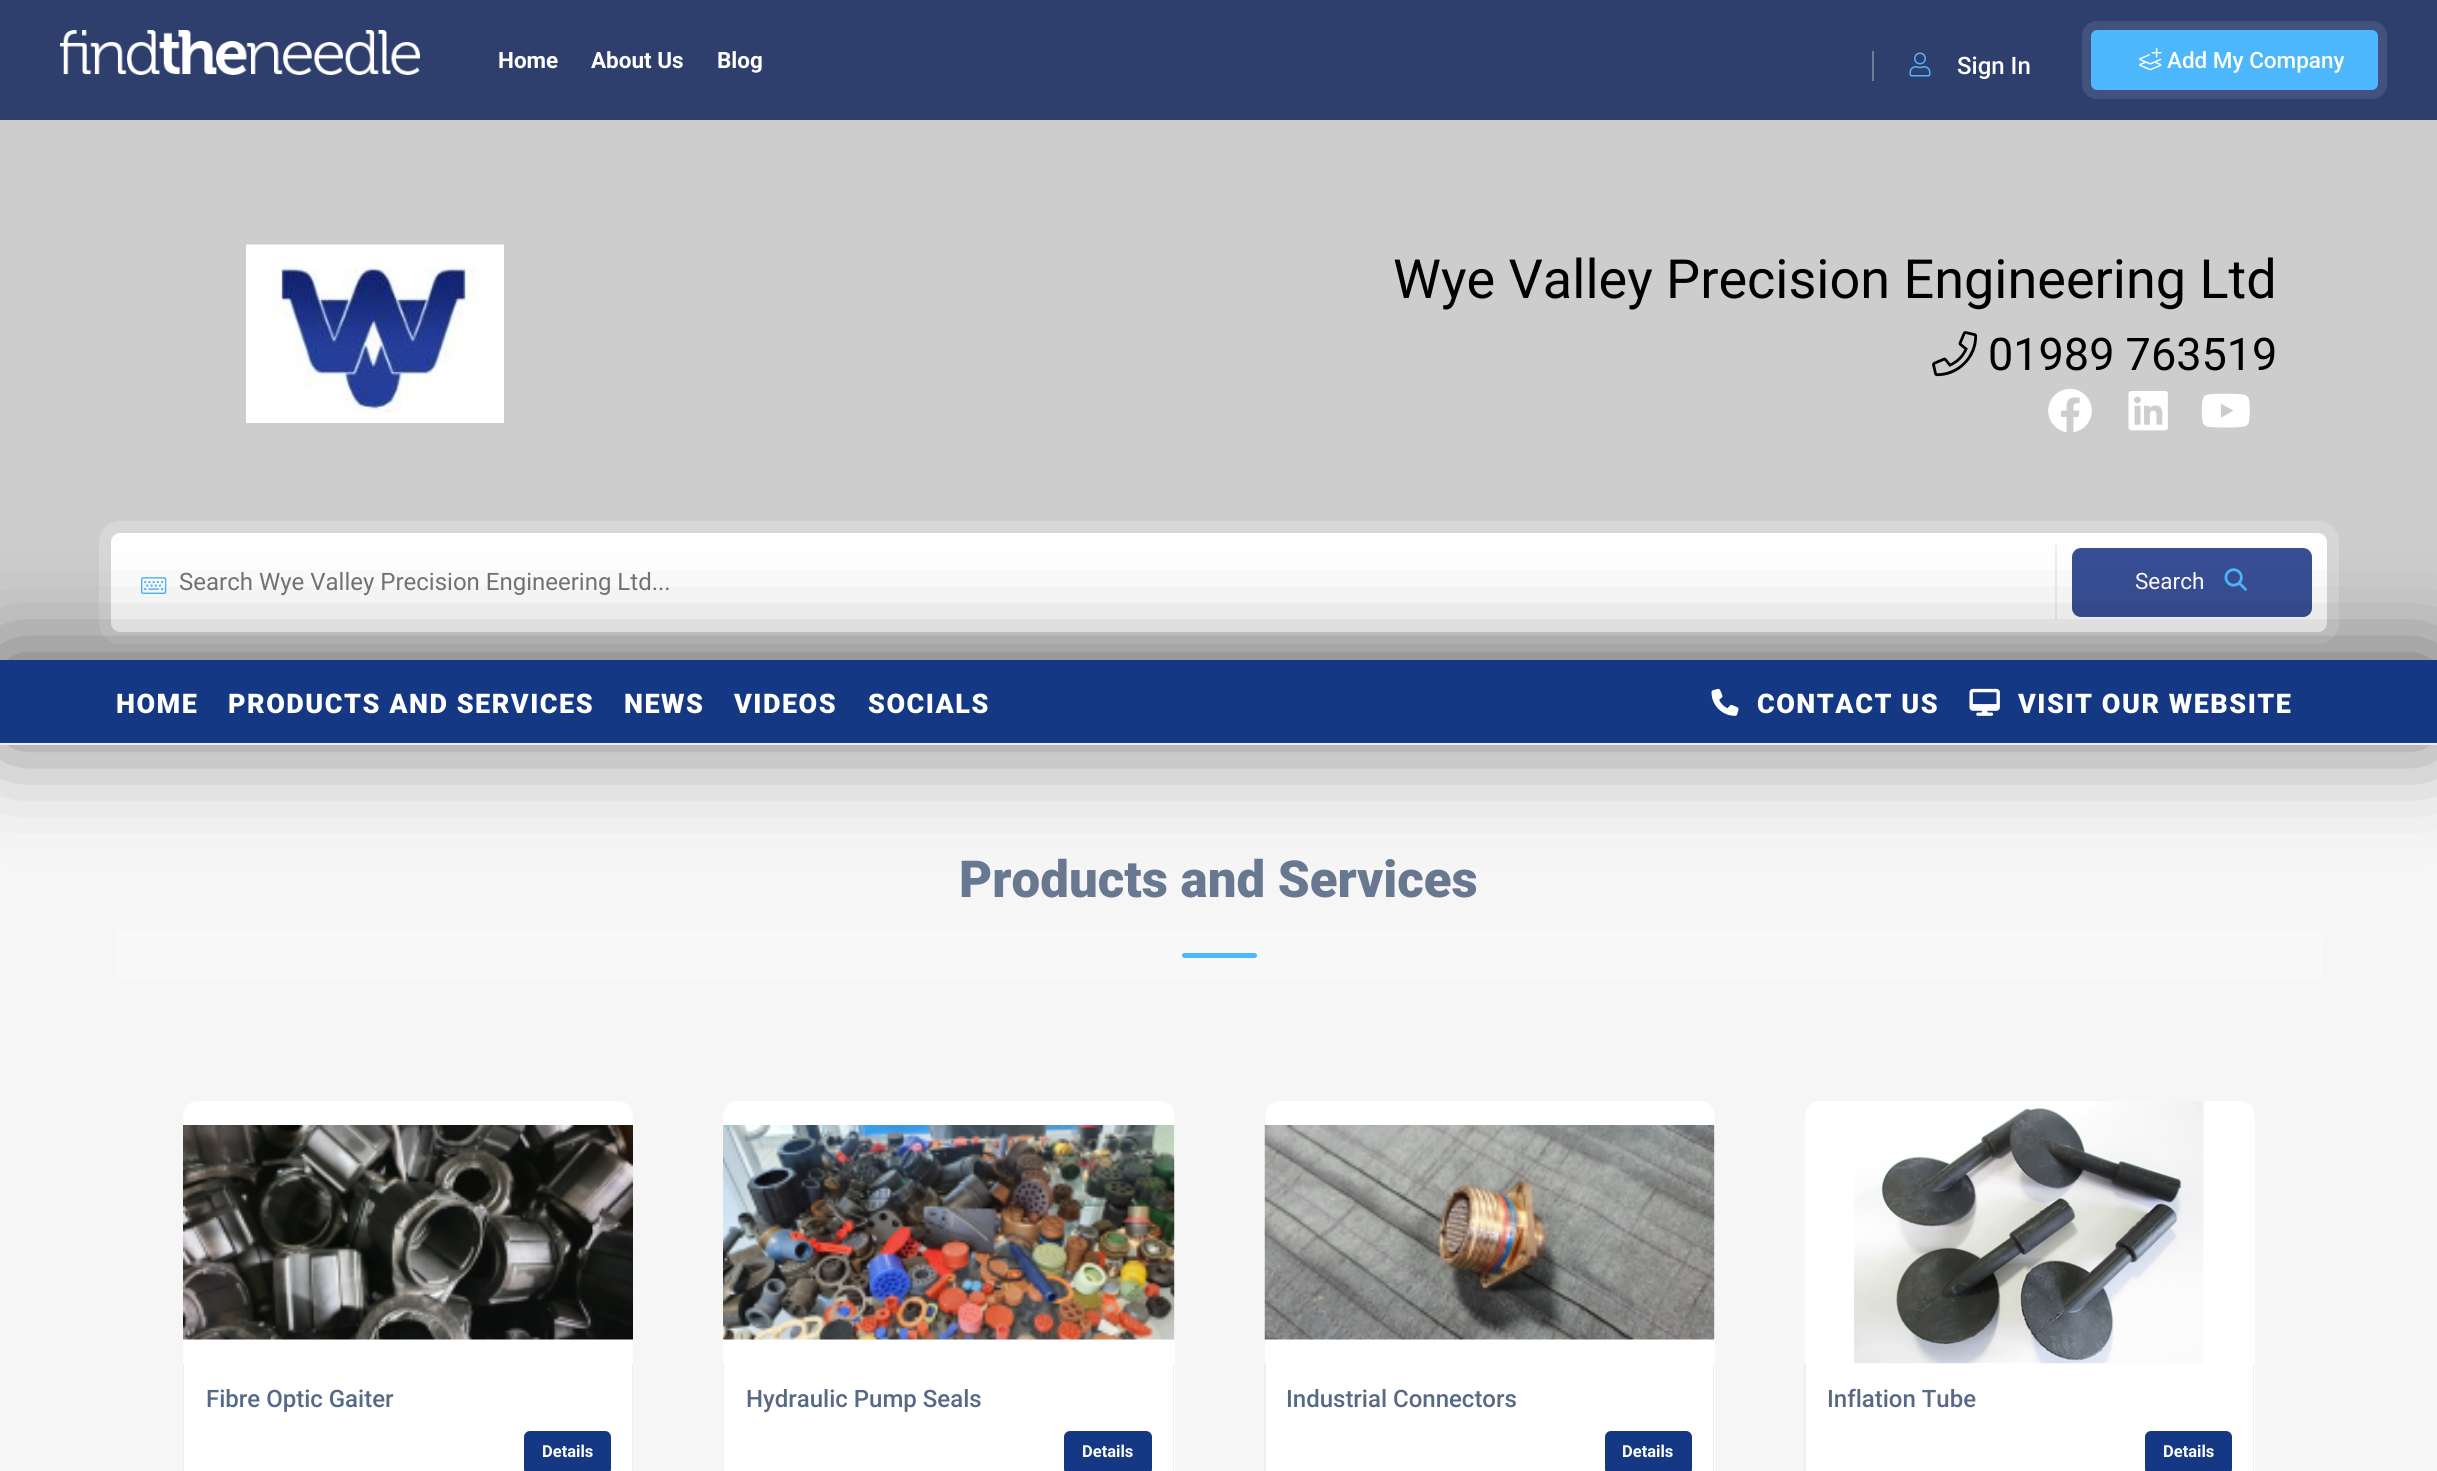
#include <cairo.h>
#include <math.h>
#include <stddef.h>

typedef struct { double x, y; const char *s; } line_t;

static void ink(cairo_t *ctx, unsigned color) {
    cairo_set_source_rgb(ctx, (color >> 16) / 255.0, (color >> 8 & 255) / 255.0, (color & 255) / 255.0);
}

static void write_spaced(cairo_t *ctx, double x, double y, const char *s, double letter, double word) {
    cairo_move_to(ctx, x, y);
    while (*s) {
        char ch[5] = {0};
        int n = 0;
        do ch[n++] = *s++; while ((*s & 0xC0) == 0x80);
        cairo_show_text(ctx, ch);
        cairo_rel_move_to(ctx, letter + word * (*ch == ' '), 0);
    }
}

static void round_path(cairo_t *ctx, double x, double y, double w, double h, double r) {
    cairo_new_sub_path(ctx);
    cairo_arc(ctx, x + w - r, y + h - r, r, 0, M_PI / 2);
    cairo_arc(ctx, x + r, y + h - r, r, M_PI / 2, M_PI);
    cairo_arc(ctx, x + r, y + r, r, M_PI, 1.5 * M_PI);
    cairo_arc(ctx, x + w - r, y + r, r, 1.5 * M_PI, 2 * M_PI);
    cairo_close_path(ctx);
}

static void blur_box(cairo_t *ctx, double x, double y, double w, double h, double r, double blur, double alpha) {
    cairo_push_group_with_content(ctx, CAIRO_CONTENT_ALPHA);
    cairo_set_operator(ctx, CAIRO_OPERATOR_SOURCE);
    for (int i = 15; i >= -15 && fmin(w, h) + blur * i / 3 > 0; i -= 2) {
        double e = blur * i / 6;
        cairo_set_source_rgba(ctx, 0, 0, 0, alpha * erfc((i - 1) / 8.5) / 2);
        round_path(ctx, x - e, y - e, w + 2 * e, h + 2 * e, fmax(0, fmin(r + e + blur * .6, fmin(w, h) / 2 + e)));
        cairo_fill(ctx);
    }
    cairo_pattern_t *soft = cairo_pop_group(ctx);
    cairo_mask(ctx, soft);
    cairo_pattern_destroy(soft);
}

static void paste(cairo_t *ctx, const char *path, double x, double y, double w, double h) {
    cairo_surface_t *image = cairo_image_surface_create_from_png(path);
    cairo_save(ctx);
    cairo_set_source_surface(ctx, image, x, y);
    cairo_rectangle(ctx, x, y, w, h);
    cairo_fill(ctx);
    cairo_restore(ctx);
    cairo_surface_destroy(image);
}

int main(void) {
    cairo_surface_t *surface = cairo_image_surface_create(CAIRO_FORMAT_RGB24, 2437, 1471);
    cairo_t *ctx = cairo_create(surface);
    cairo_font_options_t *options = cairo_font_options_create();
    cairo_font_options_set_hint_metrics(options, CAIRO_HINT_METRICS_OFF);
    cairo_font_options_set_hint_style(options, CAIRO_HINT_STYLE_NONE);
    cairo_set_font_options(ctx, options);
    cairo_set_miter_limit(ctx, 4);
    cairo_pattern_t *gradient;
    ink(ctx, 0xCDCDCD);
    cairo_paint(ctx);
    ink(ctx, 0x2E3F6E);
    cairo_rectangle(ctx, 0, 0, 2437, 120);
    cairo_fill(ctx);
    paste(ctx, "media/1.png", 60, 30, 360, 45);
    cairo_select_font_face(ctx, "Roboto", CAIRO_FONT_SLANT_NORMAL, CAIRO_FONT_WEIGHT_BOLD);
    cairo_set_font_size(ctx, 22.5);
    ink(ctx, 0xFFFFFF);
    {
        static const line_t items[] = {
            {498, 68, "Home"},
            {591, 68, "About Us"},
            {717, 68, "Blog"},
        };
        for (size_t i = 0; i < sizeof items / sizeof *items; i++) {
            cairo_move_to(ctx, items[i].x, items[i].y);
            cairo_show_text(ctx, items[i].s);
        }
    }
    ink(ctx, 0x6F7B9B);
    cairo_rectangle(ctx, 1872, 51, 2, 30);
    cairo_fill(ctx);
    paste(ctx, "media/2.png", 1909, 52, 22, 25);
    cairo_select_font_face(ctx, "Roboto Medium", CAIRO_FONT_SLANT_NORMAL, CAIRO_FONT_WEIGHT_NORMAL);
    cairo_set_font_size(ctx, 24);
    ink(ctx, 0xFFFFFF);
    cairo_move_to(ctx, 1957, 74);
    cairo_show_text(ctx, "Sign In");
    round_path(ctx, 2086.5, 25.5, 296, 69, 10.5);
    ink(ctx, 0x43527D);
    cairo_set_line_width(ctx, 9);
    cairo_stroke(ctx);
    ink(ctx, 0x4DB7FE);
    round_path(ctx, 2091, 30, 287, 60, 6);
    cairo_fill(ctx);
    paste(ctx, "media/3.png", 2139, 47, 23, 24);
    cairo_set_font_size(ctx, 22.5);
    ink(ctx, 0xFFFFFF);
    cairo_move_to(ctx, 2167, 68);
    cairo_show_text(ctx, "Add My Company");
    paste(ctx, "media/4.png", 246, 244, 258, 179);
    cairo_select_font_face(ctx, "Roboto", CAIRO_FONT_SLANT_NORMAL, CAIRO_FONT_WEIGHT_NORMAL);
    cairo_set_font_size(ctx, 54);
    ink(ctx, 0x000000);
    cairo_move_to(ctx, 1393, 298);
    cairo_show_text(ctx, "Wye Valley Precision Engineering Ltd");
    paste(ctx, "media/5.png", 1932, 331, 46, 46);
    cairo_set_font_size(ctx, 45);
    cairo_move_to(ctx, 1988, 370);
    cairo_show_text(ctx, "01989 763519");
    paste(ctx, "media/6.png", 2048, 388, 44, 44);
    paste(ctx, "media/7.png", 2128, 391, 40, 40);
    paste(ctx, "media/8.png", 2201, 393, 49, 35);
    round_path(ctx, 105, 527, 2228, 111, 15);
    ink(ctx, 0xD7D7D7);
    cairo_set_line_width(ctx, 12);
    cairo_stroke(ctx);
    ink(ctx, 0xFFFFFF);
    round_path(ctx, 111, 533, 2216, 99, 9);
    cairo_fill(ctx);
    ink(ctx, 0xEEEEEE);
    cairo_rectangle(ctx, 2055, 545, 2, 75);
    cairo_fill(ctx);
    paste(ctx, "media/9.png", 141, 577, 26, 17);
    cairo_set_font_size(ctx, 24);
    ink(ctx, 0x757575);
    cairo_move_to(ctx, 179, 590);
    cairo_show_text(ctx, "Search Wye Valley Precision Engineering Ltd...");
    ink(ctx, 0x384F95);
    round_path(ctx, 2072, 548, 240, 69, 9);
    cairo_fill(ctx);
    cairo_set_font_size(ctx, 22.5);
    ink(ctx, 0xFFFFFF);
    cairo_move_to(ctx, 2135, 589);
    cairo_show_text(ctx, "Search");
    paste(ctx, "media/10.png", 2224, 568, 23, 23);
    ink(ctx, 0xF6F6F6);
    cairo_rectangle(ctx, 0, 745, 2437, 726);
    cairo_fill(ctx);
    ink(ctx, 0x000000);
    blur_box(ctx, 0, 660, 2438, 84, 0, 49, 0.5);
    ink(ctx, 0x143884);
    cairo_rectangle(ctx, 0, 660, 2437, 83);
    cairo_fill(ctx);
    ink(ctx, 0xEEEEEE);
    cairo_rectangle(ctx, 0, 743, 2437, 2);
    cairo_fill(ctx);
    cairo_select_font_face(ctx, "Roboto Black", CAIRO_FONT_SLANT_NORMAL, CAIRO_FONT_WEIGHT_NORMAL);
    cairo_set_font_size(ctx, 27);
    ink(ctx, 0xFFFFFF);
    {
        static const line_t items[] = {
            {116, 713, "HOME"},
            {228, 713, "PRODUCTS AND SERVICES"},
            {624, 713, "NEWS"},
            {734, 713, "VIDEOS"},
            {868, 713, "SOCIALS"},
        };
        for (size_t i = 0; i < sizeof items / sizeof *items; i++) {
            write_spaced(ctx, items[i].x, items[i].y, items[i].s, 1.5, 0);
        }
    }
    paste(ctx, "media/11.png", 1711, 688, 28, 28);
    write_spaced(ctx, 1757, 713, "CONTACT US", 1.5, 0);
    paste(ctx, "media/12.png", 1969, 688, 31, 28);
    write_spaced(ctx, 2018, 713, "VISIT OUR WEBSITE", 1.5, 0);
    cairo_set_font_size(ctx, 51);
    ink(ctx, 0x697891);
    cairo_move_to(ctx, 959, 897);
    cairo_show_text(ctx, "Products and Services");
    gradient = cairo_pattern_create_linear(1219, 834, 1219, 978);
    cairo_pattern_add_color_stop_rgba(gradient, 0, 0.976, 0.976, 0.976, 0);
    cairo_pattern_add_color_stop_rgba(gradient, 1, 0.976, 0.976, 0.976, 0.95);
    cairo_set_source(ctx, gradient);
    cairo_pattern_destroy(gradient);
    cairo_rectangle(ctx, 116, 930, 2206, 48);
    cairo_fill(ctx);
    ink(ctx, 0x4DB7FE);
    round_path(ctx, 1182, 953, 75, 5, 2.5);
    cairo_fill(ctx);
    ink(ctx, 0xFFFFFF);
    cairo_new_path(ctx);
    cairo_move_to(ctx, 198, 1101);
    cairo_line_to(ctx, 618, 1101);
    cairo_curve_to(ctx, 626.5, 1101, 633, 1107.5, 633, 1116);
    cairo_line_to(ctx, 633, 1364);
    cairo_line_to(ctx, 183, 1364);
    cairo_line_to(ctx, 183, 1116);
    cairo_curve_to(ctx, 183, 1107.5, 189.5, 1101, 198, 1101);
    cairo_close_path(ctx);
    cairo_fill(ctx);
    paste(ctx, "media/13.png", 183, 1125, 450, 215);
    cairo_rectangle(ctx, 184, 1364, 448, 107);
    cairo_fill(ctx);
    ink(ctx, 0xEEEEEE);
    cairo_set_fill_rule(ctx, CAIRO_FILL_RULE_EVEN_ODD);
    cairo_new_path(ctx);
    cairo_move_to(ctx, 183, 1364);
    cairo_line_to(ctx, 633, 1364);
    cairo_line_to(ctx, 633, 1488);
    cairo_curve_to(ctx, 633, 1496, 626, 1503, 618, 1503);
    cairo_line_to(ctx, 198, 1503);
    cairo_curve_to(ctx, 190, 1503, 183, 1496, 183, 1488);
    cairo_close_path(ctx);
    cairo_move_to(ctx, 184, 1364);
    cairo_line_to(ctx, 632, 1364);
    cairo_line_to(ctx, 632, 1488);
    cairo_curve_to(ctx, 632, 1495, 625, 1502, 618, 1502);
    cairo_line_to(ctx, 198, 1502);
    cairo_curve_to(ctx, 191, 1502, 184, 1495, 184, 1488);
    cairo_close_path(ctx);
    cairo_fill(ctx);
    cairo_select_font_face(ctx, "Roboto Medium", CAIRO_FONT_SLANT_NORMAL, CAIRO_FONT_WEIGHT_NORMAL);
    cairo_set_font_size(ctx, 24);
    ink(ctx, 0x566985);
    cairo_move_to(ctx, 206, 1407);
    cairo_show_text(ctx, "Fibre Optic Gaiter");
    ink(ctx, 0x143884);
    round_path(ctx, 524, 1431, 87, 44, 6);
    cairo_fill(ctx);
    cairo_select_font_face(ctx, "Roboto", CAIRO_FONT_SLANT_NORMAL, CAIRO_FONT_WEIGHT_BOLD);
    cairo_set_font_size(ctx, 16.5);
    ink(ctx, 0xFFFFFF);
    cairo_move_to(ctx, 542, 1457);
    cairo_show_text(ctx, "Details");
    cairo_new_path(ctx);
    cairo_move_to(ctx, 738, 1101);
    cairo_line_to(ctx, 1160, 1101);
    cairo_curve_to(ctx, 1168.5, 1101, 1175, 1107.5, 1175, 1116);
    cairo_line_to(ctx, 1175, 1364);
    cairo_line_to(ctx, 723, 1364);
    cairo_line_to(ctx, 723, 1116);
    cairo_curve_to(ctx, 723, 1107.5, 729.5, 1101, 738, 1101);
    cairo_close_path(ctx);
    cairo_fill(ctx);
    paste(ctx, "media/14.png", 723, 1125, 452, 215);
    cairo_rectangle(ctx, 724, 1364, 451, 107);
    cairo_fill(ctx);
    ink(ctx, 0xEEEEEE);
    cairo_new_path(ctx);
    cairo_move_to(ctx, 723, 1364);
    cairo_line_to(ctx, 1174, 1364);
    cairo_line_to(ctx, 1174, 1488);
    cairo_curve_to(ctx, 1174, 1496, 1168, 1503, 1160, 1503);
    cairo_line_to(ctx, 738, 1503);
    cairo_curve_to(ctx, 730, 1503, 723, 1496, 723, 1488);
    cairo_close_path(ctx);
    cairo_move_to(ctx, 724, 1364);
    cairo_line_to(ctx, 1173, 1364);
    cairo_line_to(ctx, 1173, 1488);
    cairo_curve_to(ctx, 1173, 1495, 1167, 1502, 1160, 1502);
    cairo_line_to(ctx, 738, 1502);
    cairo_curve_to(ctx, 731, 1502, 724, 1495, 724, 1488);
    cairo_close_path(ctx);
    cairo_fill(ctx);
    cairo_select_font_face(ctx, "Roboto Medium", CAIRO_FONT_SLANT_NORMAL, CAIRO_FONT_WEIGHT_NORMAL);
    cairo_set_font_size(ctx, 24);
    ink(ctx, 0x566985);
    cairo_move_to(ctx, 746, 1407);
    cairo_show_text(ctx, "Hydraulic Pump Seals");
    ink(ctx, 0x143884);
    round_path(ctx, 1064, 1431, 88, 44, 6);
    cairo_fill(ctx);
    cairo_select_font_face(ctx, "Roboto", CAIRO_FONT_SLANT_NORMAL, CAIRO_FONT_WEIGHT_BOLD);
    cairo_set_font_size(ctx, 16.5);
    ink(ctx, 0xFFFFFF);
    cairo_move_to(ctx, 1082, 1457);
    cairo_show_text(ctx, "Details");
    cairo_new_path(ctx);
    cairo_move_to(ctx, 1280, 1101);
    cairo_line_to(ctx, 1700, 1101);
    cairo_curve_to(ctx, 1708.5, 1101, 1715, 1107.5, 1715, 1116);
    cairo_line_to(ctx, 1715, 1364);
    cairo_line_to(ctx, 1265, 1364);
    cairo_line_to(ctx, 1265, 1116);
    cairo_curve_to(ctx, 1265, 1107.5, 1271.5, 1101, 1280, 1101);
    cairo_close_path(ctx);
    cairo_fill(ctx);
    paste(ctx, "media/15.png", 1264, 1125, 451, 215);
    cairo_rectangle(ctx, 1266, 1364, 449, 107);
    cairo_fill(ctx);
    ink(ctx, 0xEEEEEE);
    cairo_new_path(ctx);
    cairo_move_to(ctx, 1264, 1364);
    cairo_line_to(ctx, 1714, 1364);
    cairo_line_to(ctx, 1714, 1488);
    cairo_curve_to(ctx, 1714, 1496, 1708, 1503, 1700, 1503);
    cairo_line_to(ctx, 1280, 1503);
    cairo_curve_to(ctx, 1271, 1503, 1264, 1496, 1264, 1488);
    cairo_close_path(ctx);
    cairo_move_to(ctx, 1266, 1364);
    cairo_line_to(ctx, 1713, 1364);
    cairo_line_to(ctx, 1713, 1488);
    cairo_curve_to(ctx, 1713, 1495, 1707, 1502, 1700, 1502);
    cairo_line_to(ctx, 1280, 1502);
    cairo_curve_to(ctx, 1272, 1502, 1266, 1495, 1266, 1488);
    cairo_close_path(ctx);
    cairo_fill(ctx);
    cairo_select_font_face(ctx, "Roboto Medium", CAIRO_FONT_SLANT_NORMAL, CAIRO_FONT_WEIGHT_NORMAL);
    cairo_set_font_size(ctx, 24);
    ink(ctx, 0x566985);
    cairo_move_to(ctx, 1286, 1407);
    cairo_show_text(ctx, "Industrial Connectors");
    ink(ctx, 0x143884);
    round_path(ctx, 1605, 1431, 87, 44, 6);
    cairo_fill(ctx);
    cairo_select_font_face(ctx, "Roboto", CAIRO_FONT_SLANT_NORMAL, CAIRO_FONT_WEIGHT_BOLD);
    cairo_set_font_size(ctx, 16.5);
    ink(ctx, 0xFFFFFF);
    cairo_move_to(ctx, 1622, 1457);
    cairo_show_text(ctx, "Details");
    cairo_new_path(ctx);
    cairo_move_to(ctx, 1820, 1101);
    cairo_line_to(ctx, 2240, 1101);
    cairo_curve_to(ctx, 2248.5, 1101, 2255, 1107.5, 2255, 1116);
    cairo_line_to(ctx, 2255, 1364);
    cairo_line_to(ctx, 1805, 1364);
    cairo_line_to(ctx, 1805, 1116);
    cairo_curve_to(ctx, 1805, 1107.5, 1811.5, 1101, 1820, 1101);
    cairo_close_path(ctx);
    cairo_fill(ctx);
    paste(ctx, "media/16.png", 1854, 1101, 350, 263);
    cairo_rectangle(ctx, 1806, 1364, 449, 107);
    cairo_fill(ctx);
    ink(ctx, 0xEEEEEE);
    cairo_new_path(ctx);
    cairo_move_to(ctx, 1804, 1364);
    cairo_line_to(ctx, 2254, 1364);
    cairo_line_to(ctx, 2254, 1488);
    cairo_curve_to(ctx, 2254, 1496, 2248, 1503, 2240, 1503);
    cairo_line_to(ctx, 1820, 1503);
    cairo_curve_to(ctx, 1811, 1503, 1804, 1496, 1804, 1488);
    cairo_close_path(ctx);
    cairo_move_to(ctx, 1806, 1364);
    cairo_line_to(ctx, 2253, 1364);
    cairo_line_to(ctx, 2253, 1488);
    cairo_curve_to(ctx, 2253, 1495, 2247, 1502, 2240, 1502);
    cairo_line_to(ctx, 1820, 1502);
    cairo_curve_to(ctx, 1812, 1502, 1806, 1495, 1806, 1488);
    cairo_close_path(ctx);
    cairo_fill(ctx);
    cairo_select_font_face(ctx, "Roboto Medium", CAIRO_FONT_SLANT_NORMAL, CAIRO_FONT_WEIGHT_NORMAL);
    cairo_set_font_size(ctx, 24);
    ink(ctx, 0x566985);
    cairo_move_to(ctx, 1827, 1407);
    cairo_show_text(ctx, "Inflation Tube");
    ink(ctx, 0x143884);
    round_path(ctx, 2145, 1431, 87, 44, 6);
    cairo_fill(ctx);
    cairo_select_font_face(ctx, "Roboto", CAIRO_FONT_SLANT_NORMAL, CAIRO_FONT_WEIGHT_BOLD);
    cairo_set_font_size(ctx, 16.5);
    ink(ctx, 0xFFFFFF);
    cairo_move_to(ctx, 2163, 1457);
    cairo_show_text(ctx, "Details");
    cairo_surface_write_to_png(surface, "image.png");
    cairo_font_options_destroy(options);
    cairo_destroy(ctx);
    cairo_surface_destroy(surface);
    return 0;
}
